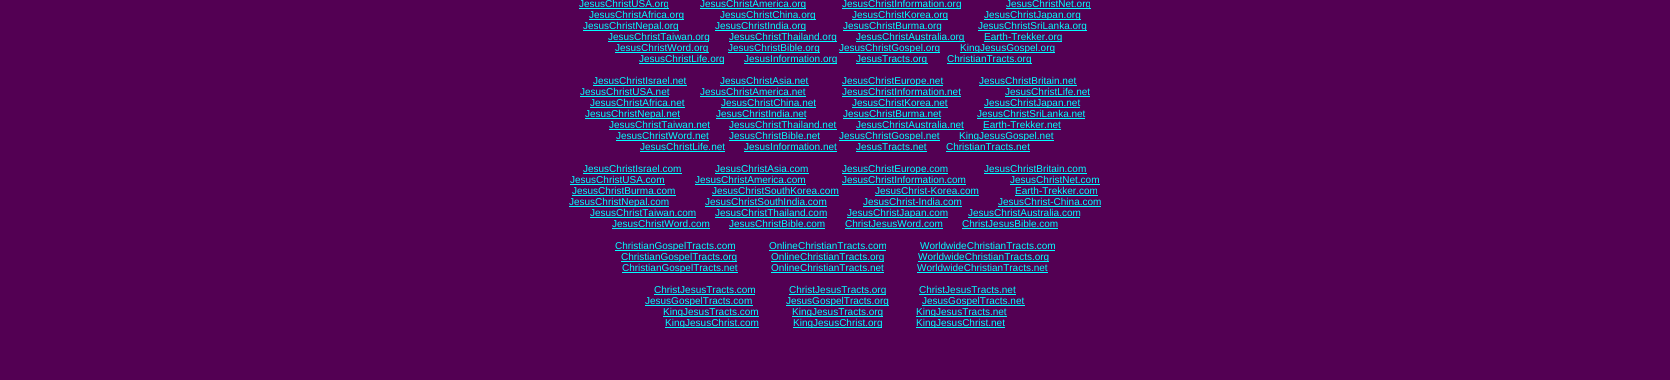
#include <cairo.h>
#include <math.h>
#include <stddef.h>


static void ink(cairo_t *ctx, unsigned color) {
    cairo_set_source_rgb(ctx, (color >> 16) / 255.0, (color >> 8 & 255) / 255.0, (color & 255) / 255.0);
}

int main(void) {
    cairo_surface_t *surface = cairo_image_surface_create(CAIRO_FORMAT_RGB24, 1670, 380);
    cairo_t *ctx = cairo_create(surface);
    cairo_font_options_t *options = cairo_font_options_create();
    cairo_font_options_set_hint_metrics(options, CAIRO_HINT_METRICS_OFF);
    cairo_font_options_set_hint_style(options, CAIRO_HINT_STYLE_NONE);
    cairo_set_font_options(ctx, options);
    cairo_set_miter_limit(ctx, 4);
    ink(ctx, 0x530053);
    cairo_paint(ctx);
    ink(ctx, 0x00FFFF);
    cairo_rectangle(ctx, 579, 8, 90, 1);
    cairo_fill(ctx);
    cairo_select_font_face(ctx, "Liberation Sans", CAIRO_FONT_SLANT_NORMAL, CAIRO_FONT_WEIGHT_NORMAL);
    cairo_set_font_size(ctx, 10);
    cairo_move_to(ctx, 579, 7);
    cairo_show_text(ctx, "JesusChristUSA.org");
    cairo_rectangle(ctx, 700, 8, 106, 1);
    cairo_fill(ctx);
    cairo_move_to(ctx, 700, 7);
    cairo_show_text(ctx, "JesusChristAmerica.org");
    cairo_rectangle(ctx, 842, 8, 119, 1);
    cairo_fill(ctx);
    cairo_move_to(ctx, 842, 7);
    cairo_show_text(ctx, "JesusChristInformation.org");
    cairo_rectangle(ctx, 1006, 8, 85, 1);
    cairo_fill(ctx);
    cairo_move_to(ctx, 1006, 7);
    cairo_show_text(ctx, "JesusChristNet.org");
    cairo_rectangle(ctx, 589, 19, 95, 1);
    cairo_fill(ctx);
    cairo_move_to(ctx, 589, 18);
    cairo_show_text(ctx, "JesusChristAfrica.org");
    cairo_rectangle(ctx, 720, 19, 96, 1);
    cairo_fill(ctx);
    cairo_move_to(ctx, 720, 18);
    cairo_show_text(ctx, "JesusChristChina.org");
    cairo_rectangle(ctx, 852, 19, 96, 1);
    cairo_fill(ctx);
    cairo_move_to(ctx, 852, 18);
    cairo_show_text(ctx, "JesusChristKorea.org");
    cairo_rectangle(ctx, 984, 19, 97, 1);
    cairo_fill(ctx);
    cairo_move_to(ctx, 984, 18);
    cairo_show_text(ctx, "JesusChristJapan.org");
    cairo_rectangle(ctx, 583, 30, 96, 1);
    cairo_fill(ctx);
    cairo_move_to(ctx, 583, 29);
    cairo_show_text(ctx, "JesusChristNepal.org");
    cairo_rectangle(ctx, 715, 30, 91, 1);
    cairo_fill(ctx);
    cairo_move_to(ctx, 715, 29);
    cairo_show_text(ctx, "JesusChristIndia.org");
    cairo_rectangle(ctx, 843, 30, 98, 1);
    cairo_fill(ctx);
    cairo_move_to(ctx, 843, 29);
    cairo_show_text(ctx, "JesusChristBurma.org");
    cairo_rectangle(ctx, 978, 30, 109, 1);
    cairo_fill(ctx);
    cairo_move_to(ctx, 978, 29);
    cairo_show_text(ctx, "JesusChristSriLanka.org");
    cairo_rectangle(ctx, 608, 41, 101, 1);
    cairo_fill(ctx);
    cairo_move_to(ctx, 608, 40);
    cairo_show_text(ctx, "JesusChristTaiwan.org");
    cairo_rectangle(ctx, 729, 41, 108, 1);
    cairo_fill(ctx);
    cairo_move_to(ctx, 729, 40);
    cairo_show_text(ctx, "JesusChristThailand.org");
    cairo_rectangle(ctx, 856, 41, 109, 1);
    cairo_fill(ctx);
    cairo_move_to(ctx, 856, 40);
    cairo_show_text(ctx, "JesusChristAustralia.org");
    cairo_rectangle(ctx, 984, 41, 78, 1);
    cairo_fill(ctx);
    cairo_move_to(ctx, 984, 40);
    cairo_show_text(ctx, "Earth-Trekker.org");
    cairo_rectangle(ctx, 615, 52, 94, 1);
    cairo_fill(ctx);
    cairo_move_to(ctx, 615, 51);
    cairo_show_text(ctx, "JesusChristWord.org");
    cairo_rectangle(ctx, 728, 52, 92, 1);
    cairo_fill(ctx);
    cairo_move_to(ctx, 728, 51);
    cairo_show_text(ctx, "JesusChristBible.org");
    cairo_rectangle(ctx, 839, 52, 101, 1);
    cairo_fill(ctx);
    cairo_move_to(ctx, 839, 51);
    cairo_show_text(ctx, "JesusChristGospel.org");
    cairo_rectangle(ctx, 960, 52, 95, 1);
    cairo_fill(ctx);
    cairo_move_to(ctx, 960, 51);
    cairo_show_text(ctx, "KingJesusGospel.org");
    cairo_rectangle(ctx, 639, 63, 85, 1);
    cairo_fill(ctx);
    cairo_move_to(ctx, 639, 62);
    cairo_show_text(ctx, "JesusChristLife.org");
    cairo_rectangle(ctx, 744, 63, 93, 1);
    cairo_fill(ctx);
    cairo_move_to(ctx, 744, 62);
    cairo_show_text(ctx, "JesusInformation.org");
    cairo_rectangle(ctx, 856, 63, 72, 1);
    cairo_fill(ctx);
    cairo_move_to(ctx, 856, 62);
    cairo_show_text(ctx, "JesusTracts.org");
    cairo_rectangle(ctx, 947, 63, 85, 1);
    cairo_fill(ctx);
    cairo_move_to(ctx, 947, 62);
    cairo_show_text(ctx, "ChristianTracts.org");
    cairo_move_to(ctx, 593, 84);
    cairo_show_text(ctx, "JesusChristIsrael.net");
    cairo_rectangle(ctx, 593, 85, 94, 1);
    cairo_fill(ctx);
    cairo_move_to(ctx, 720, 84);
    cairo_show_text(ctx, "JesusChristAsia.net");
    cairo_rectangle(ctx, 720, 85, 89, 1);
    cairo_fill(ctx);
    cairo_rectangle(ctx, 842, 85, 101, 1);
    cairo_fill(ctx);
    cairo_move_to(ctx, 842, 84);
    cairo_show_text(ctx, "JesusChristEurope.net");
    cairo_move_to(ctx, 979, 84);
    cairo_show_text(ctx, "JesusChristBritain.net");
    cairo_rectangle(ctx, 979, 85, 98, 1);
    cairo_fill(ctx);
    cairo_move_to(ctx, 580, 95);
    cairo_show_text(ctx, "JesusChristUSA.net");
    cairo_rectangle(ctx, 580, 96, 89, 1);
    cairo_fill(ctx);
    cairo_move_to(ctx, 700, 95);
    cairo_show_text(ctx, "JesusChristAmerica.net");
    cairo_rectangle(ctx, 700, 96, 106, 1);
    cairo_fill(ctx);
    cairo_move_to(ctx, 842, 95);
    cairo_show_text(ctx, "JesusChristInformation.net");
    cairo_rectangle(ctx, 842, 96, 119, 1);
    cairo_fill(ctx);
    cairo_move_to(ctx, 1005, 95);
    cairo_show_text(ctx, "JesusChristLife.net");
    cairo_rectangle(ctx, 1005, 96, 85, 1);
    cairo_fill(ctx);
    cairo_move_to(ctx, 590, 106);
    cairo_show_text(ctx, "JesusChristAfrica.net");
    cairo_rectangle(ctx, 590, 107, 95, 1);
    cairo_fill(ctx);
    cairo_move_to(ctx, 721, 106);
    cairo_show_text(ctx, "JesusChristChina.net");
    cairo_rectangle(ctx, 721, 107, 95, 1);
    cairo_fill(ctx);
    cairo_move_to(ctx, 852, 106);
    cairo_show_text(ctx, "JesusChristKorea.net");
    cairo_rectangle(ctx, 852, 107, 96, 1);
    cairo_fill(ctx);
    cairo_rectangle(ctx, 984, 107, 96, 1);
    cairo_fill(ctx);
    cairo_move_to(ctx, 984, 106);
    cairo_show_text(ctx, "JesusChristJapan.net");
    cairo_rectangle(ctx, 585, 118, 95, 1);
    cairo_fill(ctx);
    cairo_move_to(ctx, 585, 117);
    cairo_show_text(ctx, "JesusChristNepal.net");
    cairo_move_to(ctx, 716, 117);
    cairo_show_text(ctx, "JesusChristIndia.net");
    cairo_rectangle(ctx, 716, 118, 90, 1);
    cairo_fill(ctx);
    cairo_move_to(ctx, 843, 117);
    cairo_show_text(ctx, "JesusChristBurma.net");
    cairo_rectangle(ctx, 843, 118, 98, 1);
    cairo_fill(ctx);
    cairo_move_to(ctx, 977, 117);
    cairo_show_text(ctx, "JesusChristSriLanka.net");
    cairo_rectangle(ctx, 977, 118, 108, 1);
    cairo_fill(ctx);
    cairo_move_to(ctx, 609, 128);
    cairo_show_text(ctx, "JesusChristTaiwan.net");
    cairo_rectangle(ctx, 609, 129, 101, 1);
    cairo_fill(ctx);
    cairo_move_to(ctx, 729, 128);
    cairo_show_text(ctx, "JesusChristThailand.net");
    cairo_rectangle(ctx, 729, 129, 108, 1);
    cairo_fill(ctx);
    cairo_move_to(ctx, 856, 128);
    cairo_show_text(ctx, "JesusChristAustralia.net");
    cairo_rectangle(ctx, 856, 129, 108, 1);
    cairo_fill(ctx);
    cairo_move_to(ctx, 983, 128);
    cairo_show_text(ctx, "Earth-Trekker.net");
    cairo_rectangle(ctx, 983, 129, 78, 1);
    cairo_fill(ctx);
    cairo_move_to(ctx, 616, 139);
    cairo_show_text(ctx, "JesusChristWord.net");
    cairo_rectangle(ctx, 616, 140, 93, 1);
    cairo_fill(ctx);
    cairo_move_to(ctx, 729, 139);
    cairo_show_text(ctx, "JesusChristBible.net");
    cairo_rectangle(ctx, 729, 140, 91, 1);
    cairo_fill(ctx);
    cairo_rectangle(ctx, 839, 140, 101, 1);
    cairo_fill(ctx);
    cairo_move_to(ctx, 839, 139);
    cairo_show_text(ctx, "JesusChristGospel.net");
    cairo_rectangle(ctx, 959, 140, 95, 1);
    cairo_fill(ctx);
    cairo_move_to(ctx, 959, 139);
    cairo_show_text(ctx, "KingJesusGospel.net");
    cairo_move_to(ctx, 640, 150);
    cairo_show_text(ctx, "JesusChristLife.net");
    cairo_rectangle(ctx, 640, 151, 85, 1);
    cairo_fill(ctx);
    cairo_move_to(ctx, 744, 150);
    cairo_show_text(ctx, "JesusInformation.net");
    cairo_rectangle(ctx, 744, 151, 93, 1);
    cairo_fill(ctx);
    cairo_move_to(ctx, 856, 150);
    cairo_show_text(ctx, "JesusTracts.net");
    cairo_rectangle(ctx, 856, 151, 71, 1);
    cairo_fill(ctx);
    cairo_move_to(ctx, 946, 150);
    cairo_show_text(ctx, "ChristianTracts.net");
    cairo_rectangle(ctx, 946, 151, 84, 1);
    cairo_fill(ctx);
    cairo_move_to(ctx, 583, 172);
    cairo_show_text(ctx, "JesusChristIsrael.com");
    cairo_rectangle(ctx, 583, 173, 99, 1);
    cairo_fill(ctx);
    cairo_move_to(ctx, 715, 172);
    cairo_show_text(ctx, "JesusChristAsia.com");
    cairo_rectangle(ctx, 715, 173, 94, 1);
    cairo_fill(ctx);
    cairo_rectangle(ctx, 842, 173, 106, 1);
    cairo_fill(ctx);
    cairo_move_to(ctx, 842, 172);
    cairo_show_text(ctx, "JesusChristEurope.com");
    cairo_move_to(ctx, 984, 172);
    cairo_show_text(ctx, "JesusChristBritain.com");
    cairo_rectangle(ctx, 984, 173, 103, 1);
    cairo_fill(ctx);
    cairo_move_to(ctx, 570, 183);
    cairo_show_text(ctx, "JesusChristUSA.com");
    cairo_rectangle(ctx, 570, 184, 95, 1);
    cairo_fill(ctx);
    cairo_move_to(ctx, 695, 183);
    cairo_show_text(ctx, "JesusChristAmerica.com");
    cairo_rectangle(ctx, 695, 184, 111, 1);
    cairo_fill(ctx);
    cairo_move_to(ctx, 842, 183);
    cairo_show_text(ctx, "JesusChristInformation.com");
    cairo_rectangle(ctx, 842, 184, 124, 1);
    cairo_fill(ctx);
    cairo_move_to(ctx, 1010, 183);
    cairo_show_text(ctx, "JesusChristNet.com");
    cairo_rectangle(ctx, 1010, 184, 90, 1);
    cairo_fill(ctx);
    cairo_move_to(ctx, 572, 194);
    cairo_show_text(ctx, "JesusChristBurma.com");
    cairo_rectangle(ctx, 572, 195, 104, 1);
    cairo_fill(ctx);
    cairo_move_to(ctx, 712, 194);
    cairo_show_text(ctx, "JesusChristSouthKorea.com");
    cairo_rectangle(ctx, 712, 195, 127, 1);
    cairo_fill(ctx);
    cairo_move_to(ctx, 875, 194);
    cairo_show_text(ctx, "JesusChrist-Korea.com");
    cairo_rectangle(ctx, 875, 195, 104, 1);
    cairo_fill(ctx);
    cairo_move_to(ctx, 1015, 194);
    cairo_show_text(ctx, "Earth-Trekker.com");
    cairo_rectangle(ctx, 1015, 195, 83, 1);
    cairo_fill(ctx);
    cairo_rectangle(ctx, 569, 206, 100, 1);
    cairo_fill(ctx);
    cairo_move_to(ctx, 569, 205);
    cairo_show_text(ctx, "JesusChristNepal.com");
    cairo_move_to(ctx, 705, 205);
    cairo_show_text(ctx, "JesusChristSouthIndia.com");
    cairo_rectangle(ctx, 705, 206, 122, 1);
    cairo_fill(ctx);
    cairo_move_to(ctx, 863, 205);
    cairo_show_text(ctx, "JesusChrist-India.com");
    cairo_rectangle(ctx, 863, 206, 99, 1);
    cairo_fill(ctx);
    cairo_move_to(ctx, 998, 205);
    cairo_show_text(ctx, "JesusChrist-China.com");
    cairo_rectangle(ctx, 998, 206, 103, 1);
    cairo_fill(ctx);
    cairo_move_to(ctx, 590, 216);
    cairo_show_text(ctx, "JesusChristTaiwan.com");
    cairo_rectangle(ctx, 590, 217, 106, 1);
    cairo_fill(ctx);
    cairo_move_to(ctx, 715, 216);
    cairo_show_text(ctx, "JesusChristThailand.com");
    cairo_rectangle(ctx, 715, 217, 112, 1);
    cairo_fill(ctx);
    cairo_rectangle(ctx, 847, 217, 101, 1);
    cairo_fill(ctx);
    cairo_move_to(ctx, 847, 216);
    cairo_show_text(ctx, "JesusChristJapan.com");
    cairo_move_to(ctx, 968, 216);
    cairo_show_text(ctx, "JesusChristAustralia.com");
    cairo_rectangle(ctx, 968, 217, 112, 1);
    cairo_fill(ctx);
    cairo_move_to(ctx, 612, 227);
    cairo_show_text(ctx, "JesusChristWord.com");
    cairo_rectangle(ctx, 612, 228, 98, 1);
    cairo_fill(ctx);
    cairo_move_to(ctx, 729, 227);
    cairo_show_text(ctx, "JesusChristBible.com");
    cairo_rectangle(ctx, 729, 228, 96, 1);
    cairo_fill(ctx);
    cairo_move_to(ctx, 845, 227);
    cairo_show_text(ctx, "ChristJesusWord.com");
    cairo_rectangle(ctx, 845, 228, 98, 1);
    cairo_fill(ctx);
    cairo_move_to(ctx, 962, 227);
    cairo_show_text(ctx, "ChristJesusBible.com");
    cairo_rectangle(ctx, 962, 228, 96, 1);
    cairo_fill(ctx);
    cairo_rectangle(ctx, 615, 250, 120, 1);
    cairo_fill(ctx);
    cairo_move_to(ctx, 615, 249);
    cairo_show_text(ctx, "ChristianGospelTracts.com");
    cairo_move_to(ctx, 769, 249);
    cairo_show_text(ctx, "OnlineChristianTracts.com");
    cairo_rectangle(ctx, 769, 250, 117, 1);
    cairo_fill(ctx);
    cairo_move_to(ctx, 920, 249);
    cairo_show_text(ctx, "WorldwideChristianTracts.com");
    cairo_rectangle(ctx, 920, 250, 135, 1);
    cairo_fill(ctx);
    cairo_rectangle(ctx, 621, 261, 116, 1);
    cairo_fill(ctx);
    cairo_move_to(ctx, 621, 260);
    cairo_show_text(ctx, "ChristianGospelTracts.org");
    cairo_rectangle(ctx, 771, 261, 113, 1);
    cairo_fill(ctx);
    cairo_move_to(ctx, 771, 260);
    cairo_show_text(ctx, "OnlineChristianTracts.org");
    cairo_rectangle(ctx, 918, 261, 131, 1);
    cairo_fill(ctx);
    cairo_move_to(ctx, 918, 260);
    cairo_show_text(ctx, "WorldwideChristianTracts.org");
    cairo_rectangle(ctx, 622, 272, 116, 1);
    cairo_fill(ctx);
    cairo_move_to(ctx, 622, 271);
    cairo_show_text(ctx, "ChristianGospelTracts.net");
    cairo_move_to(ctx, 771, 271);
    cairo_show_text(ctx, "OnlineChristianTracts.net");
    cairo_rectangle(ctx, 771, 272, 113, 1);
    cairo_fill(ctx);
    cairo_move_to(ctx, 917, 271);
    cairo_show_text(ctx, "WorldwideChristianTracts.net");
    cairo_rectangle(ctx, 917, 272, 131, 1);
    cairo_fill(ctx);
    cairo_move_to(ctx, 654, 293);
    cairo_show_text(ctx, "ChristJesusTracts.com");
    cairo_rectangle(ctx, 654, 294, 101, 1);
    cairo_fill(ctx);
    cairo_rectangle(ctx, 789, 294, 97, 1);
    cairo_fill(ctx);
    cairo_move_to(ctx, 789, 293);
    cairo_show_text(ctx, "ChristJesusTracts.org");
    cairo_move_to(ctx, 919, 293);
    cairo_show_text(ctx, "ChristJesusTracts.net");
    cairo_rectangle(ctx, 919, 294, 97, 1);
    cairo_fill(ctx);
    cairo_rectangle(ctx, 645, 305, 108, 1);
    cairo_fill(ctx);
    cairo_move_to(ctx, 645, 304);
    cairo_show_text(ctx, "JesusGospelTracts.com");
    cairo_rectangle(ctx, 786, 305, 103, 1);
    cairo_fill(ctx);
    cairo_move_to(ctx, 786, 304);
    cairo_show_text(ctx, "JesusGospelTracts.org");
    cairo_rectangle(ctx, 922, 305, 103, 1);
    cairo_fill(ctx);
    cairo_move_to(ctx, 922, 304);
    cairo_show_text(ctx, "JesusGospelTracts.net");
    cairo_rectangle(ctx, 663, 316, 96, 1);
    cairo_fill(ctx);
    cairo_move_to(ctx, 663, 315);
    cairo_show_text(ctx, "KingJesusTracts.com");
    cairo_rectangle(ctx, 792, 316, 91, 1);
    cairo_fill(ctx);
    cairo_move_to(ctx, 792, 315);
    cairo_show_text(ctx, "KingJesusTracts.org");
    cairo_rectangle(ctx, 916, 316, 91, 1);
    cairo_fill(ctx);
    cairo_move_to(ctx, 916, 315);
    cairo_show_text(ctx, "KingJesusTracts.net");
    cairo_rectangle(ctx, 665, 327, 94, 1);
    cairo_fill(ctx);
    cairo_move_to(ctx, 665, 326);
    cairo_show_text(ctx, "KingJesusChrist.com");
    cairo_rectangle(ctx, 793, 327, 89, 1);
    cairo_fill(ctx);
    cairo_move_to(ctx, 793, 326);
    cairo_show_text(ctx, "KingJesusChrist.org");
    cairo_rectangle(ctx, 916, 327, 89, 1);
    cairo_fill(ctx);
    cairo_move_to(ctx, 916, 326);
    cairo_show_text(ctx, "KingJesusChrist.net");
    cairo_surface_write_to_png(surface, "image.png");
    cairo_font_options_destroy(options);
    cairo_destroy(ctx);
    cairo_surface_destroy(surface);
    return 0;
}
